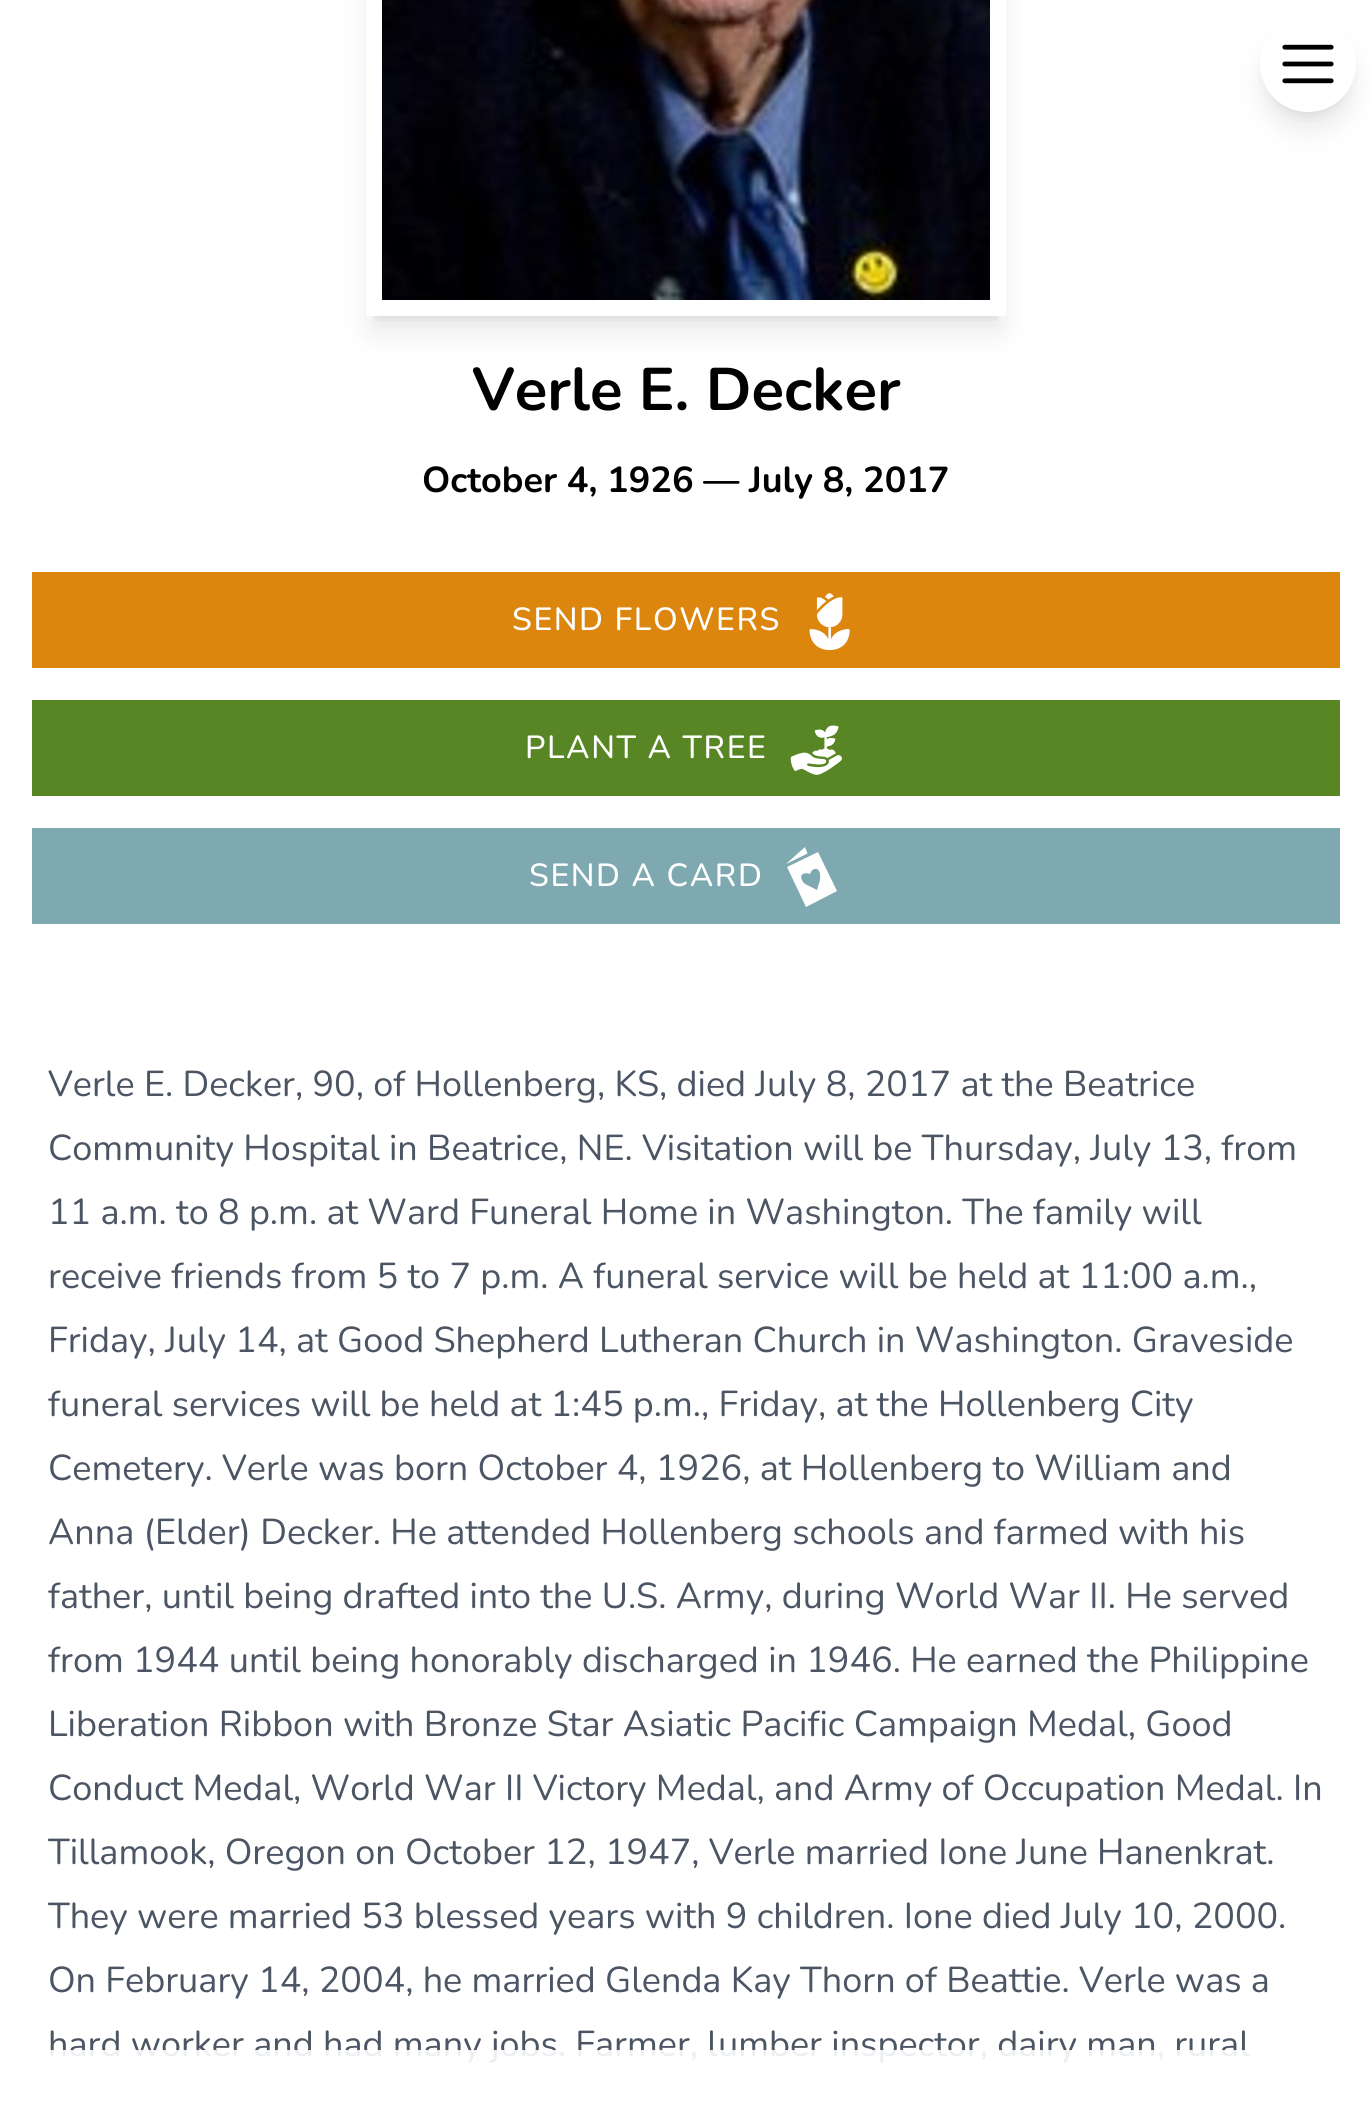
#include <cairo.h>
#include <math.h>
#include <stddef.h>

typedef struct { double x, y; const char *s; } line_t;

static void ink(cairo_t *ctx, unsigned color) {
    cairo_set_source_rgb(ctx, (color >> 16) / 255.0, (color >> 8 & 255) / 255.0, (color & 255) / 255.0);
}

static void write_spaced(cairo_t *ctx, double x, double y, const char *s, double letter, double word) {
    cairo_move_to(ctx, x, y);
    while (*s) {
        char ch[5] = {0};
        int n = 0;
        do ch[n++] = *s++; while ((*s & 0xC0) == 0x80);
        cairo_show_text(ctx, ch);
        cairo_rel_move_to(ctx, letter + word * (*ch == ' '), 0);
    }
}

static void round_path(cairo_t *ctx, double x, double y, double w, double h, double r) {
    cairo_new_sub_path(ctx);
    cairo_arc(ctx, x + w - r, y + h - r, r, 0, M_PI / 2);
    cairo_arc(ctx, x + r, y + h - r, r, M_PI / 2, M_PI);
    cairo_arc(ctx, x + r, y + r, r, M_PI, 1.5 * M_PI);
    cairo_arc(ctx, x + w - r, y + r, r, 1.5 * M_PI, 2 * M_PI);
    cairo_close_path(ctx);
}

static void blur_box(cairo_t *ctx, double x, double y, double w, double h, double r, double blur, double alpha) {
    cairo_push_group_with_content(ctx, CAIRO_CONTENT_ALPHA);
    cairo_set_operator(ctx, CAIRO_OPERATOR_SOURCE);
    for (int i = 15; i >= -15 && fmin(w, h) + blur * i / 3 > 0; i -= 2) {
        double e = blur * i / 6;
        cairo_set_source_rgba(ctx, 0, 0, 0, alpha * erfc((i - 1) / 8.5) / 2);
        round_path(ctx, x - e, y - e, w + 2 * e, h + 2 * e, fmax(0, fmin(r + e + blur * .6, fmin(w, h) / 2 + e)));
        cairo_fill(ctx);
    }
    cairo_pattern_t *soft = cairo_pop_group(ctx);
    cairo_mask(ctx, soft);
    cairo_pattern_destroy(soft);
}

static void paste(cairo_t *ctx, const char *path, double x, double y, double w, double h) {
    cairo_surface_t *image = cairo_image_surface_create_from_png(path);
    cairo_save(ctx);
    cairo_set_source_surface(ctx, image, x, y);
    cairo_rectangle(ctx, x, y, w, h);
    cairo_fill(ctx);
    cairo_restore(ctx);
    cairo_surface_destroy(image);
}

int main(void) {
    cairo_surface_t *surface = cairo_image_surface_create(CAIRO_FORMAT_RGB24, 1371, 2114);
    cairo_t *ctx = cairo_create(surface);
    cairo_font_options_t *options = cairo_font_options_create();
    cairo_font_options_set_hint_metrics(options, CAIRO_HINT_METRICS_OFF);
    cairo_font_options_set_hint_style(options, CAIRO_HINT_STYLE_NONE);
    cairo_set_font_options(ctx, options);
    cairo_set_miter_limit(ctx, 4);
    ink(ctx, 0xFFFFFF);
    cairo_paint(ctx);
    ink(ctx, 0x000000);
    blur_box(ctx, 1268, 32, 80, 80, 40, 6, 0.1);
    blur_box(ctx, 1266, 42, 84, 84, 42, 15, 0.1);
    ink(ctx, 0xFFFFFF);
    cairo_arc(ctx, 1308, 64, 48, 0, 2 * M_PI);
    cairo_fill(ctx);
    paste(ctx, "media/1.png", 1282, 44, 52, 40);
    cairo_save(ctx);
    cairo_rectangle(ctx, 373, 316, 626, 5);
    cairo_clip(ctx);
    ink(ctx, 0x000000);
    blur_box(ctx, 374, -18, 624, 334, 0, 6, 0.1);
    cairo_restore(ctx);
    cairo_save(ctx);
    cairo_set_fill_rule(ctx, CAIRO_FILL_RULE_EVEN_ODD);
    cairo_new_path(ctx);
    cairo_move_to(ctx, 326, 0);
    cairo_line_to(ctx, 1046, 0);
    cairo_line_to(ctx, 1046, 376);
    cairo_line_to(ctx, 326, 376);
    cairo_close_path(ctx);
    cairo_move_to(ctx, 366, -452);
    cairo_line_to(ctx, 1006, -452);
    cairo_line_to(ctx, 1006, 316);
    cairo_line_to(ctx, 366, 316);
    cairo_close_path(ctx);
    cairo_clip(ctx);
    ink(ctx, 0x000000);
    blur_box(ctx, 372, -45, 628, 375, 0, 15, 0.1);
    cairo_restore(ctx);
    paste(ctx, "media/2.png", 382, 0, 608, 300);
    cairo_select_font_face(ctx, "Nunito", CAIRO_FONT_SLANT_NORMAL, CAIRO_FONT_WEIGHT_BOLD);
    cairo_set_font_size(ctx, 60);
    ink(ctx, 0x000000);
    cairo_move_to(ctx, 472, 410);
    cairo_show_text(ctx, "Verle E. Decker");
    cairo_set_font_size(ctx, 36);
    cairo_move_to(ctx, 422, 492);
    cairo_show_text(ctx, "October 4, 1926 — July 8, 2017");
    ink(ctx, 0xDC860D);
    cairo_rectangle(ctx, 32, 572, 1308, 96);
    cairo_fill(ctx);
    cairo_select_font_face(ctx, "Nunito Medium", CAIRO_FONT_SLANT_NORMAL, CAIRO_FONT_WEIGHT_NORMAL);
    cairo_set_font_size(ctx, 32);
    ink(ctx, 0xFFFFFF);
    write_spaced(ctx, 512, 630, "SEND FLOWERS", 1.6, 0);
    paste(ctx, "media/3.png", 809, 593, 41, 58);
    ink(ctx, 0x588624);
    cairo_rectangle(ctx, 32, 700, 1308, 96);
    cairo_fill(ctx);
    ink(ctx, 0xFFFFFF);
    write_spaced(ctx, 525, 758, "PLANT A TREE", 1.6, 0);
    paste(ctx, "media/4.png", 790, 725, 52, 50);
    ink(ctx, 0x7EA9B0);
    cairo_rectangle(ctx, 32, 828, 1308, 96);
    cairo_fill(ctx);
    ink(ctx, 0xFFFFFF);
    write_spaced(ctx, 529, 886, "SEND A CARD", 1.6, 0);
    cairo_new_path(ctx);
    cairo_move_to(ctx, 818, 852);
    cairo_line_to(ctx, 787, 867);
    cairo_line_to(ctx, 806, 907);
    cairo_line_to(ctx, 837, 891);
    cairo_close_path(ctx);
    cairo_move_to(ctx, 802, 880);
    cairo_curve_to(ctx, 799, 874, 805, 872, 810, 874);
    cairo_curve_to(ctx, 812, 867, 820, 867, 820, 875);
    cairo_curve_to(ctx, 821, 880, 818, 885, 817, 890);
    cairo_curve_to(ctx, 808, 885, 804, 885, 802, 880);
    cairo_close_path(ctx);
    cairo_fill(ctx);
    cairo_new_path(ctx);
    cairo_move_to(ctx, 807.5, 853.5);
    cairo_line_to(ctx, 786, 864);
    cairo_line_to(ctx, 805, 847);
    cairo_close_path(ctx);
    cairo_fill(ctx);
    cairo_select_font_face(ctx, "Nunito", CAIRO_FONT_SLANT_NORMAL, CAIRO_FONT_WEIGHT_NORMAL);
    cairo_set_font_size(ctx, 36);
    ink(ctx, 0x4B5563);
    {
        static const line_t items[] = {
            {48, 1096, "Verle E. Decker, 90, of Hollenberg, KS, died July 8, 2017 at the Beatrice"},
            {48, 1160, "Community Hospital in Beatrice, NE. Visitation will be Thursday, July 13, from"},
            {48, 1224, "11 a.m. to 8 p.m. at Ward Funeral Home in Washington. The family will"},
            {48, 1288, "receive friends from 5 to 7 p.m. A funeral service will be held at 11:00 a.m.,"},
            {48, 1352, "Friday, July 14, at Good Shepherd Lutheran Church in Washington. Graveside"},
            {48, 1416, "funeral services will be held at 1:45 p.m., Friday, at the Hollenberg City"},
            {48, 1480, "Cemetery. Verle was born October 4, 1926, at Hollenberg to William and"},
            {48, 1544, "Anna (Elder) Decker. He attended Hollenberg schools and farmed with his"},
            {48, 1608, "father, until being drafted into the U.S. Army, during World War II. He served"},
            {48, 1672, "from 1944 until being honorably discharged in 1946. He earned the Philippine"},
            {48, 1736, "Liberation Ribbon with Bronze Star Asiatic Pacific Campaign Medal, Good"},
            {48, 1800, "Conduct Medal, World War II Victory Medal, and Army of Occupation Medal. In"},
            {48, 1864, "Tillamook, Oregon on October 12, 1947, Verle married Ione June Hanenkrat."},
            {48, 1928, "They were married 53 blessed years with 9 children. Ione died July 10, 2000."},
            {48, 1992, "On February 14, 2004, he married Glenda Kay Thorn of Beattie. Verle was a"},
            {48, 2056, "hard worker and had many jobs. Farmer, lumber inspector, dairy man, rural"},
        };
        for (size_t i = 0; i < sizeof items / sizeof *items; i++) {
            cairo_move_to(ctx, items[i].x, items[i].y);
            cairo_show_text(ctx, items[i].s);
        }
    }
    cairo_set_source_rgba(ctx, 1, 1, 1, 0.9);
    cairo_rectangle(ctx, 50, 2050, 1200, 13);
    cairo_fill(ctx);
    cairo_surface_write_to_png(surface, "image.png");
    cairo_font_options_destroy(options);
    cairo_destroy(ctx);
    cairo_surface_destroy(surface);
    return 0;
}
